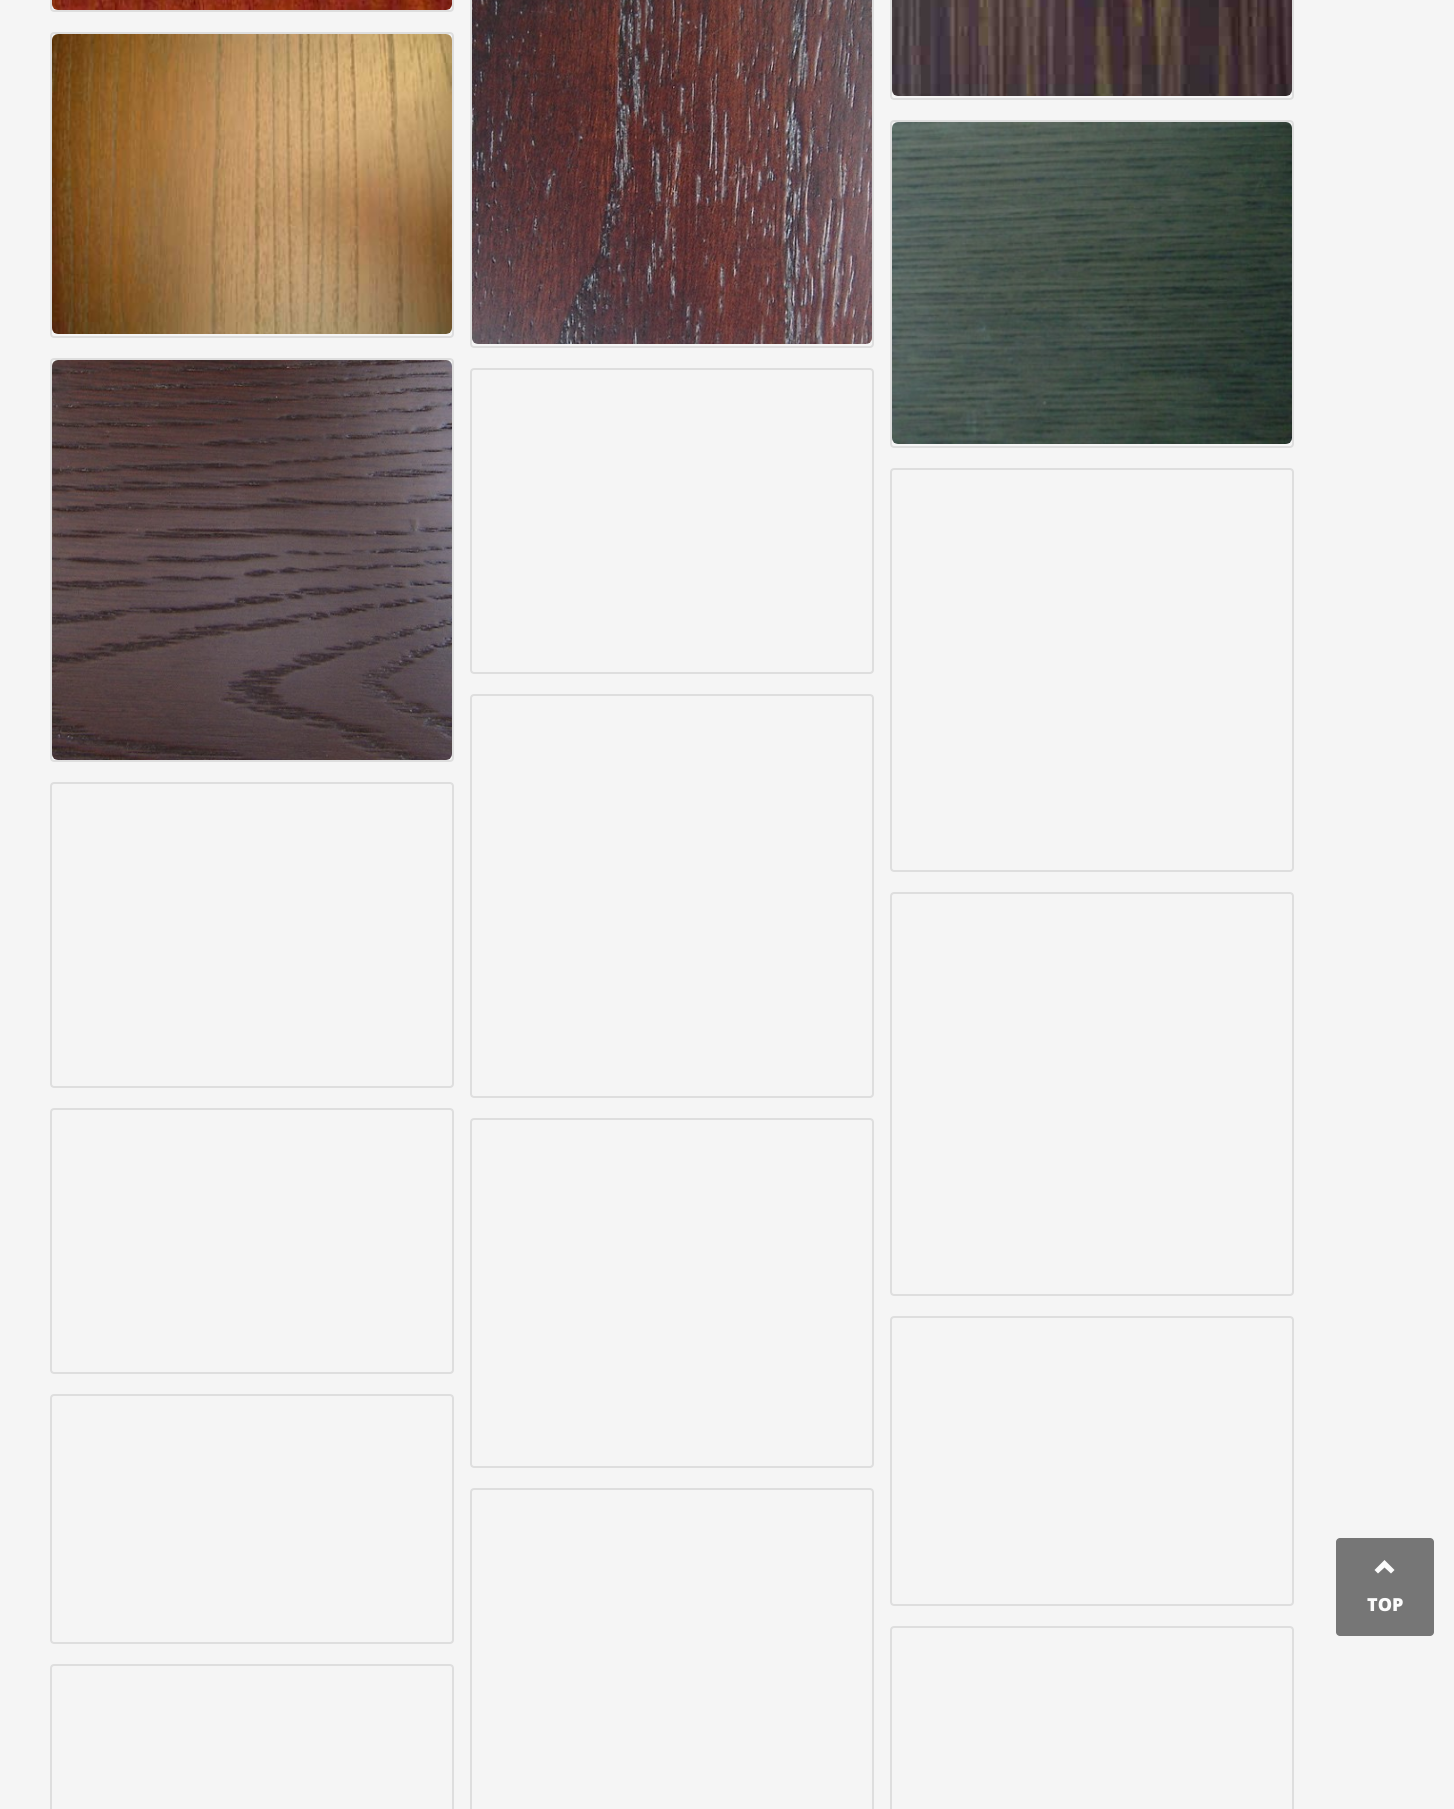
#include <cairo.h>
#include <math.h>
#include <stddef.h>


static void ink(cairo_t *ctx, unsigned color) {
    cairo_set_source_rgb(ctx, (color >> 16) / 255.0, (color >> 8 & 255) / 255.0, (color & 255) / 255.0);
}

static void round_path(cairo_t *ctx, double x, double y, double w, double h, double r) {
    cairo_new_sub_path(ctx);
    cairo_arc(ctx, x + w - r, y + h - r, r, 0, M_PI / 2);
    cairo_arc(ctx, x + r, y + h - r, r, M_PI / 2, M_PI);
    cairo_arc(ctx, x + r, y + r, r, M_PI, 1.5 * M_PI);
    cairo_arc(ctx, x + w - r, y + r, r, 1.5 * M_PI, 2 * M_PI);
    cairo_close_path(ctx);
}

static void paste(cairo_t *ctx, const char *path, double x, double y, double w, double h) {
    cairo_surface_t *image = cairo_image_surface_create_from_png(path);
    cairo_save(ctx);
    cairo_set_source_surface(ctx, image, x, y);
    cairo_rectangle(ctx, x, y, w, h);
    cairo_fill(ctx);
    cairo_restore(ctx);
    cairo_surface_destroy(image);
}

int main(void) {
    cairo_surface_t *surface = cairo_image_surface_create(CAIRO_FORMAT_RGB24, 1454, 1809);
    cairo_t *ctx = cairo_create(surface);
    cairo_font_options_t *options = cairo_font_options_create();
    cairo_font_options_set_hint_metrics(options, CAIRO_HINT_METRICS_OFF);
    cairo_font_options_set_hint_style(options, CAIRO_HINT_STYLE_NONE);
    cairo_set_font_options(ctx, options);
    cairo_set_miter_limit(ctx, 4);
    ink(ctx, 0xF5F5F5);
    cairo_paint(ctx);
    round_path(ctx, 51, -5, 402, 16, 3);
    ink(ctx, 0xDEDEDE);
    cairo_stroke(ctx);
    paste(ctx, "media/1.png", 52, 0, 400, 10);
    round_path(ctx, 471, -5, 402, 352, 3);
    cairo_stroke(ctx);
    paste(ctx, "media/2.png", 472, 0, 400, 344);
    round_path(ctx, 891, -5, 402, 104, 3);
    cairo_stroke(ctx);
    paste(ctx, "media/3.png", 892, 0, 400, 96);
    round_path(ctx, 51, 33, 402, 304, 3);
    cairo_stroke(ctx);
    paste(ctx, "media/4.png", 52, 34, 400, 300);
    round_path(ctx, 891, 121, 402, 326, 3);
    cairo_stroke(ctx);
    paste(ctx, "media/5.png", 892, 122, 400, 322);
    round_path(ctx, 51, 359, 402, 402, 3);
    cairo_stroke(ctx);
    paste(ctx, "media/6.png", 52, 360, 400, 400);
    round_path(ctx, 471, 369, 402, 304, 3);
    cairo_stroke(ctx);
    round_path(ctx, 891, 469, 402, 402, 3);
    cairo_stroke(ctx);
    round_path(ctx, 51, 783, 402, 304, 3);
    cairo_stroke(ctx);
    round_path(ctx, 471, 695, 402, 402, 3);
    cairo_stroke(ctx);
    round_path(ctx, 891, 893, 402, 402, 3);
    cairo_stroke(ctx);
    round_path(ctx, 51, 1109, 402, 264, 3);
    cairo_stroke(ctx);
    round_path(ctx, 471, 1119, 402, 348, 3);
    cairo_stroke(ctx);
    round_path(ctx, 891, 1317, 402, 288, 3);
    cairo_stroke(ctx);
    round_path(ctx, 51, 1395, 402, 248, 3);
    cairo_stroke(ctx);
    round_path(ctx, 471, 1489, 402, 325, 3);
    cairo_stroke(ctx);
    round_path(ctx, 891, 1627, 402, 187, 3);
    cairo_stroke(ctx);
    round_path(ctx, 51, 1665, 402, 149, 3);
    cairo_stroke(ctx);
    ink(ctx, 0x767676);
    round_path(ctx, 1336, 1538, 98, 98, 4);
    cairo_fill(ctx);
    ink(ctx, 0xFCFCFC);
    cairo_new_path(ctx);
    cairo_move_to(ctx, 1384.5, 1560);
    cairo_line_to(ctx, 1394.5, 1570);
    cairo_line_to(ctx, 1391, 1573.5);
    cairo_line_to(ctx, 1384.5, 1567.5);
    cairo_line_to(ctx, 1378, 1573.5);
    cairo_line_to(ctx, 1374.5, 1570);
    cairo_close_path(ctx);
    cairo_fill(ctx);
    cairo_select_font_face(ctx, "Open Sans ExtraBold", CAIRO_FONT_SLANT_NORMAL, CAIRO_FONT_WEIGHT_NORMAL);
    cairo_set_font_size(ctx, 18);
    cairo_move_to(ctx, 1367, 1611);
    cairo_show_text(ctx, "TOP");
    cairo_surface_write_to_png(surface, "image.png");
    cairo_font_options_destroy(options);
    cairo_destroy(ctx);
    cairo_surface_destroy(surface);
    return 0;
}
